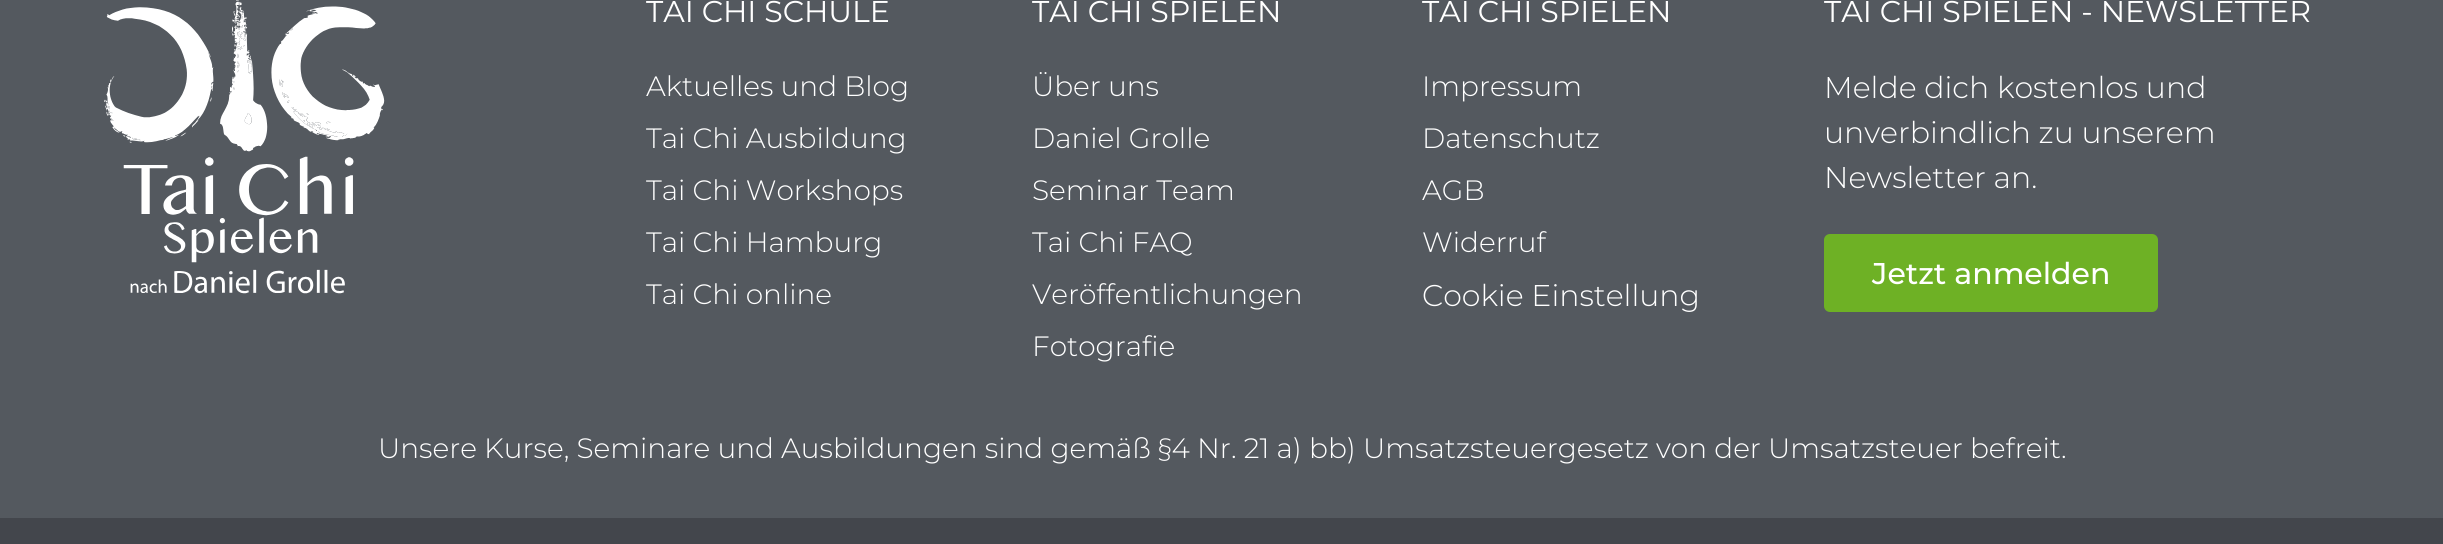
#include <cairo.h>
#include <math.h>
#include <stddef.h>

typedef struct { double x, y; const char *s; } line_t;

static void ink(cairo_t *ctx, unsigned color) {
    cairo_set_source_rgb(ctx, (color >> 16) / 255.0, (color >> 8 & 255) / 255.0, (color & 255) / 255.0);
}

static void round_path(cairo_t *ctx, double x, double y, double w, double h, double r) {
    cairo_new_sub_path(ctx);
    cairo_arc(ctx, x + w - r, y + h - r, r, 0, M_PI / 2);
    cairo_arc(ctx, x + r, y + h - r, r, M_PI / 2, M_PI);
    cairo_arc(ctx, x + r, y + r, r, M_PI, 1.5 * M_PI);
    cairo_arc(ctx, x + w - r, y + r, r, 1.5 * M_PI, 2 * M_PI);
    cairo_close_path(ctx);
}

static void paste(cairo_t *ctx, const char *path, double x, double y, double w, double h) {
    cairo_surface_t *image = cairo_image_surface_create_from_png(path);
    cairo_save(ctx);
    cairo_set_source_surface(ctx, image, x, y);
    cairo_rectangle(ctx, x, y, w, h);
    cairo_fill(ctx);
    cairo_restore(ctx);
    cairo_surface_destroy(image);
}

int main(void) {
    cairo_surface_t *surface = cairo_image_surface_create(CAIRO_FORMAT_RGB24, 2443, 544);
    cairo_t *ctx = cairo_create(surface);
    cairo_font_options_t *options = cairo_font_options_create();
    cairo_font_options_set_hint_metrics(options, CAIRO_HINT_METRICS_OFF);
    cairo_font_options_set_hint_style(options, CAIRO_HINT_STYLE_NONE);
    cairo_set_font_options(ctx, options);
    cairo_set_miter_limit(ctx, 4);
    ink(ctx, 0x54595F);
    cairo_paint(ctx);
    paste(ctx, "media/1.png", 104, 0, 281, 294);
    cairo_select_font_face(ctx, "Montserrat", CAIRO_FONT_SLANT_NORMAL, CAIRO_FONT_WEIGHT_NORMAL);
    cairo_set_font_size(ctx, 30);
    ink(ctx, 0xFFFFFF);
    cairo_move_to(ctx, 646, 22);
    cairo_show_text(ctx, "TAI CHI SCHULE");
    cairo_select_font_face(ctx, "Montserrat Light", CAIRO_FONT_SLANT_NORMAL, CAIRO_FONT_WEIGHT_NORMAL);
    cairo_set_font_size(ctx, 28);
    {
        static const line_t items[] = {
            {646, 96, "Aktuelles und Blog"},
            {646, 148, "Tai Chi Ausbildung"},
            {646, 200, "Tai Chi Workshops"},
            {646, 252, "Tai Chi Hamburg"},
            {646, 304, "Tai Chi online"},
        };
        for (size_t i = 0; i < sizeof items / sizeof *items; i++) {
            cairo_move_to(ctx, items[i].x, items[i].y);
            cairo_show_text(ctx, items[i].s);
        }
    }
    cairo_select_font_face(ctx, "Montserrat", CAIRO_FONT_SLANT_NORMAL, CAIRO_FONT_WEIGHT_NORMAL);
    cairo_set_font_size(ctx, 30);
    cairo_move_to(ctx, 1032, 22);
    cairo_show_text(ctx, "TAI CHI SPIELEN");
    cairo_select_font_face(ctx, "Montserrat Light", CAIRO_FONT_SLANT_NORMAL, CAIRO_FONT_WEIGHT_NORMAL);
    cairo_set_font_size(ctx, 28);
    {
        static const line_t items[] = {
            {1032, 96, "Über uns"},
            {1032, 148, "Daniel Grolle"},
            {1032, 200, "Seminar Team"},
            {1032, 252, "Tai Chi FAQ"},
            {1032, 304, "Veröffentlichungen"},
            {1032, 356, "Fotografie"},
        };
        for (size_t i = 0; i < sizeof items / sizeof *items; i++) {
            cairo_move_to(ctx, items[i].x, items[i].y);
            cairo_show_text(ctx, items[i].s);
        }
    }
    cairo_select_font_face(ctx, "Montserrat", CAIRO_FONT_SLANT_NORMAL, CAIRO_FONT_WEIGHT_NORMAL);
    cairo_set_font_size(ctx, 30);
    cairo_move_to(ctx, 1422, 22);
    cairo_show_text(ctx, "TAI CHI SPIELEN");
    cairo_select_font_face(ctx, "Montserrat Light", CAIRO_FONT_SLANT_NORMAL, CAIRO_FONT_WEIGHT_NORMAL);
    cairo_set_font_size(ctx, 28);
    {
        static const line_t items[] = {
            {1422, 96, "Impressum"},
            {1422, 148, "Datenschutz"},
            {1422, 200, "AGB"},
            {1422, 252, "Widerruf"},
        };
        for (size_t i = 0; i < sizeof items / sizeof *items; i++) {
            cairo_move_to(ctx, items[i].x, items[i].y);
            cairo_show_text(ctx, items[i].s);
        }
    }
    cairo_set_font_size(ctx, 30);
    cairo_move_to(ctx, 1422, 306);
    cairo_show_text(ctx, "Cookie Einstellung");
    cairo_select_font_face(ctx, "Montserrat", CAIRO_FONT_SLANT_NORMAL, CAIRO_FONT_WEIGHT_NORMAL);
    cairo_move_to(ctx, 1824, 22);
    cairo_show_text(ctx, "TAI CHI SPIELEN - NEWSLETTER");
    cairo_select_font_face(ctx, "Montserrat Light", CAIRO_FONT_SLANT_NORMAL, CAIRO_FONT_WEIGHT_NORMAL);
    {
        static const line_t items[] = {
            {1824, 98, "Melde dich kostenlos und"},
            {1824, 143, "unverbindlich zu unserem"},
            {1824, 188, "Newsletter an."},
        };
        for (size_t i = 0; i < sizeof items / sizeof *items; i++) {
            cairo_move_to(ctx, items[i].x, items[i].y);
            cairo_show_text(ctx, items[i].s);
        }
    }
    ink(ctx, 0x6EB125);
    round_path(ctx, 1824, 234, 334, 78, 6);
    cairo_fill(ctx);
    cairo_select_font_face(ctx, "Montserrat Medium", CAIRO_FONT_SLANT_NORMAL, CAIRO_FONT_WEIGHT_NORMAL);
    ink(ctx, 0xFFFFFF);
    cairo_move_to(ctx, 1872, 284);
    cairo_show_text(ctx, "Jetzt anmelden");
    cairo_select_font_face(ctx, "Montserrat Light", CAIRO_FONT_SLANT_NORMAL, CAIRO_FONT_WEIGHT_NORMAL);
    cairo_set_font_size(ctx, 28);
    cairo_move_to(ctx, 378, 458);
    cairo_show_text(ctx, "Unsere Kurse, Seminare und Ausbildungen sind gemäß §4 Nr. 21 a) bb) Umsatzsteuergesetz von der Umsatzsteuer befreit.");
    ink(ctx, 0x43464C);
    cairo_rectangle(ctx, 0, 518, 2443, 26);
    cairo_fill(ctx);
    cairo_surface_write_to_png(surface, "image.png");
    cairo_font_options_destroy(options);
    cairo_destroy(ctx);
    cairo_surface_destroy(surface);
    return 0;
}
